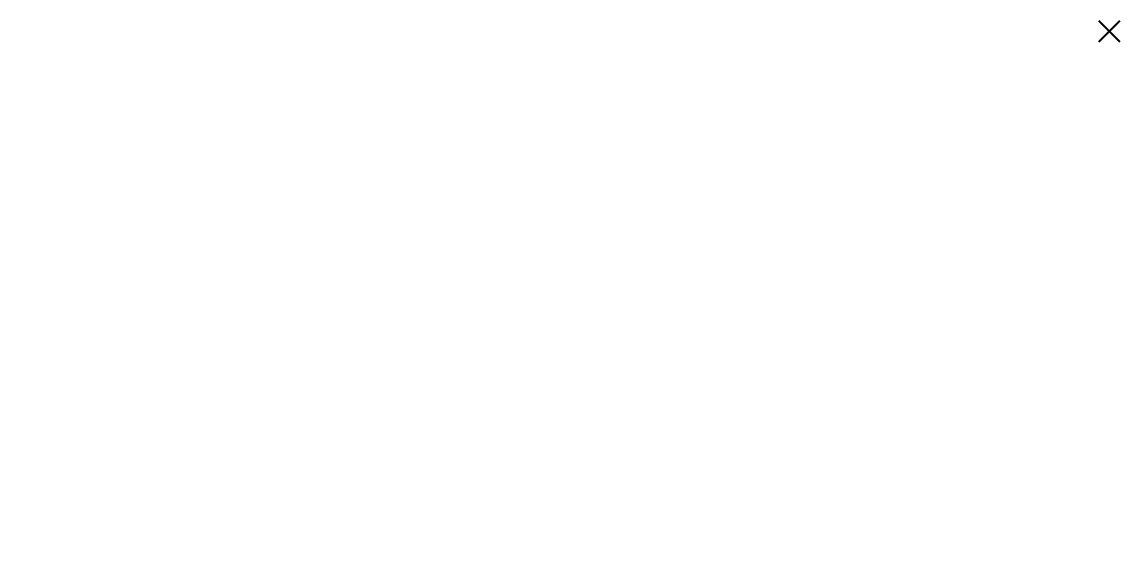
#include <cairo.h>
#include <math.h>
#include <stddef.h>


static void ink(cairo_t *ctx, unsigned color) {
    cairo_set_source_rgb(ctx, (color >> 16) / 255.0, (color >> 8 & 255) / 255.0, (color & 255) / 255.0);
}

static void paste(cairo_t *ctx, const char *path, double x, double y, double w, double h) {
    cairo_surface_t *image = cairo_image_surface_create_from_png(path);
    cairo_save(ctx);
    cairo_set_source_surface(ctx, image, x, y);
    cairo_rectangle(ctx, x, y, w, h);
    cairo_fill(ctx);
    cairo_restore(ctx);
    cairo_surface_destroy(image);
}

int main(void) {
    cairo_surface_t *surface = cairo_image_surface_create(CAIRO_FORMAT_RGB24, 1141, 571);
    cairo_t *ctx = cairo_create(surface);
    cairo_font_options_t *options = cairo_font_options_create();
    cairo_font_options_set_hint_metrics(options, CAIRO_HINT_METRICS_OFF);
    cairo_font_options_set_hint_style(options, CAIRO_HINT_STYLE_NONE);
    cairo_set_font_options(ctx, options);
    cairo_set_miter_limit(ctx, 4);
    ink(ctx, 0xFFFFFF);
    cairo_paint(ctx);
    paste(ctx, "media/1.png", 1098, 20, 23, 23);
    cairo_surface_write_to_png(surface, "image.png");
    cairo_font_options_destroy(options);
    cairo_destroy(ctx);
    cairo_surface_destroy(surface);
    return 0;
}
